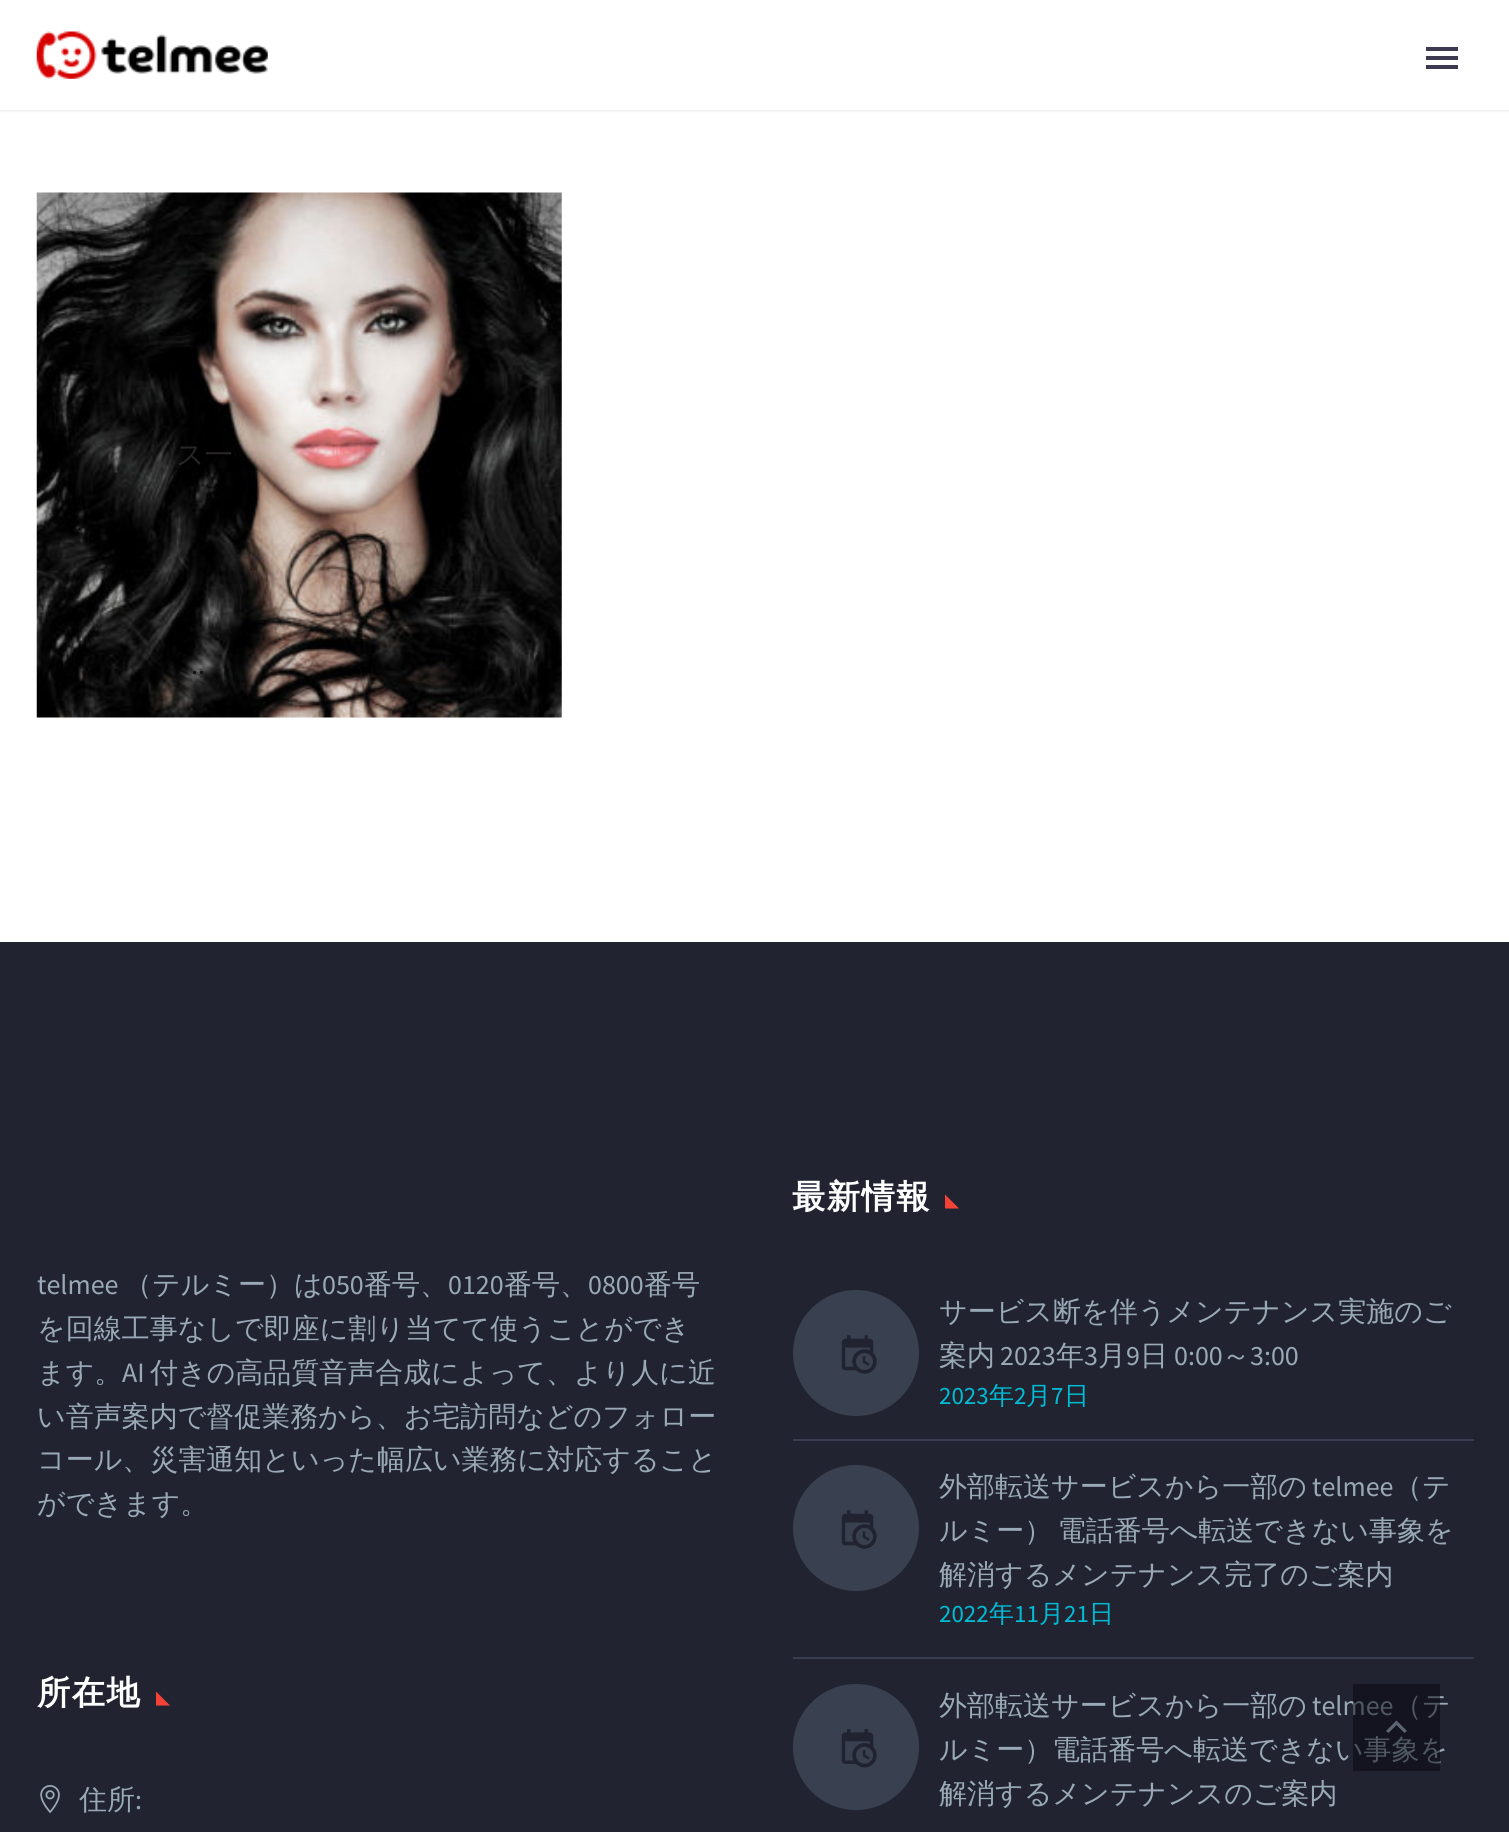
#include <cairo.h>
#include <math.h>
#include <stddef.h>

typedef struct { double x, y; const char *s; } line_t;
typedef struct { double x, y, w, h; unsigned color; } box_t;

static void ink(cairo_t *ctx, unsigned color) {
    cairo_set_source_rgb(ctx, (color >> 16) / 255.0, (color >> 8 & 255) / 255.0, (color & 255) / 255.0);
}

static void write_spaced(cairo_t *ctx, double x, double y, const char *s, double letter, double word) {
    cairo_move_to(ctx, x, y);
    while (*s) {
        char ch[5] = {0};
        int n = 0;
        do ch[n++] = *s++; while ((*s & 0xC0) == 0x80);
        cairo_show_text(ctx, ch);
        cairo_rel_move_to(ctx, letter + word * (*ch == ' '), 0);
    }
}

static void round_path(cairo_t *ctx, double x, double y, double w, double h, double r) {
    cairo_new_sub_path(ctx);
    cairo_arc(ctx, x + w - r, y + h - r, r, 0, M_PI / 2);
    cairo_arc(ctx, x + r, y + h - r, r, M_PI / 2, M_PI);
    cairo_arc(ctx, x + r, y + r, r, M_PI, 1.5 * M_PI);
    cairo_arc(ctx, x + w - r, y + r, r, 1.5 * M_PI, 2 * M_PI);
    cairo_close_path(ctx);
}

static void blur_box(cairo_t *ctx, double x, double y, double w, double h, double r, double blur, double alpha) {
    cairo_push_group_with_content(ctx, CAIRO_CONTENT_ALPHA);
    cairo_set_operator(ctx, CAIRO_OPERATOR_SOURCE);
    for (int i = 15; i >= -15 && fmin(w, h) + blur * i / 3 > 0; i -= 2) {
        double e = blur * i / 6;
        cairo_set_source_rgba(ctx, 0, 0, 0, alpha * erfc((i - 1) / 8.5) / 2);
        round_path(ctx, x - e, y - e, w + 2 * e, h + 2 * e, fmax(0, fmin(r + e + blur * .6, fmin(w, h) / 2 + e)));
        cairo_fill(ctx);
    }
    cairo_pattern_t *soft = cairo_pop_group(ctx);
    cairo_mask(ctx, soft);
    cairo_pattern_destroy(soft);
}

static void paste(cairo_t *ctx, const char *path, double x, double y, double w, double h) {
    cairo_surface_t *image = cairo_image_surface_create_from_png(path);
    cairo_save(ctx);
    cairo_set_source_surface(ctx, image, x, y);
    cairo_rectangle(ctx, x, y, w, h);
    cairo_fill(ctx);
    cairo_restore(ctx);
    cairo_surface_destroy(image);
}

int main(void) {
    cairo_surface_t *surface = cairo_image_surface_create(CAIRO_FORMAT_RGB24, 1509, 1832);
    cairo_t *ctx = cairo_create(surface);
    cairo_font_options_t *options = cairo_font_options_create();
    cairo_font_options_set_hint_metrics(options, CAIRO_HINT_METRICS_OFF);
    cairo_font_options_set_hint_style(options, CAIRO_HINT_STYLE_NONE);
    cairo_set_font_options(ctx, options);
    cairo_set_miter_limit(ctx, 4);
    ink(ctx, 0xFFFFFF);
    cairo_paint(ctx);
    paste(ctx, "media/1.png", 36, 192, 526, 526);
    cairo_save(ctx);
    cairo_rectangle(ctx, 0, 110, 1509, 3);
    cairo_clip(ctx);
    ink(ctx, 0x384554);
    blur_box(ctx, 0, 0, 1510, 110, 0, 2, 0.2);
    cairo_restore(ctx);
    paste(ctx, "media/2.png", 36, 31, 232, 48);
    {
        static const box_t items[] = {
            {1426, 47, 32, 4, 0x3C3950},
            {1426, 56, 32, 4, 0x3C3950},
            {1426, 65, 32, 4, 0x3C3950},
        };
        for (size_t i = 0; i < sizeof items / sizeof *items; i++) {
            ink(ctx, items[i].color);
            cairo_rectangle(ctx, items[i].x, items[i].y, items[i].w, items[i].h);
            cairo_fill(ctx);
        }
    }
    cairo_select_font_face(ctx, "WenQuanYi Zen Hei Medium", CAIRO_FONT_SLANT_NORMAL, CAIRO_FONT_WEIGHT_NORMAL);
    cairo_set_font_size(ctx, 28);
    ink(ctx, 0x292625);
    cairo_move_to(ctx, 176, 464);
    cairo_show_text(ctx, "ス一");
    cairo_select_font_face(ctx, "Source Sans Pro", CAIRO_FONT_SLANT_NORMAL, CAIRO_FONT_WEIGHT_NORMAL);
    ink(ctx, 0x101010);
    cairo_move_to(ctx, 191, 674);
    cairo_show_text(ctx, "..");
    ink(ctx, 0x212331);
    cairo_rectangle(ctx, 0, 942, 1509, 890);
    cairo_fill(ctx);
    ink(ctx, 0x99A9B5);
    cairo_move_to(ctx, 37, 1294);
    cairo_show_text(ctx, "telmee");
    cairo_select_font_face(ctx, "WenQuanYi Zen Hei Medium", CAIRO_FONT_SLANT_NORMAL, CAIRO_FONT_WEIGHT_NORMAL);
    cairo_move_to(ctx, 124, 1294);
    cairo_show_text(ctx, "（テルミー）は");
    cairo_select_font_face(ctx, "Source Sans Pro", CAIRO_FONT_SLANT_NORMAL, CAIRO_FONT_WEIGHT_NORMAL);
    cairo_move_to(ctx, 322, 1294);
    cairo_show_text(ctx, "050");
    cairo_select_font_face(ctx, "WenQuanYi Zen Hei Medium", CAIRO_FONT_SLANT_NORMAL, CAIRO_FONT_WEIGHT_NORMAL);
    cairo_move_to(ctx, 364, 1294);
    cairo_show_text(ctx, "番号、");
    cairo_select_font_face(ctx, "Source Sans Pro", CAIRO_FONT_SLANT_NORMAL, CAIRO_FONT_WEIGHT_NORMAL);
    cairo_move_to(ctx, 448, 1294);
    cairo_show_text(ctx, "0120");
    cairo_select_font_face(ctx, "WenQuanYi Zen Hei Medium", CAIRO_FONT_SLANT_NORMAL, CAIRO_FONT_WEIGHT_NORMAL);
    cairo_move_to(ctx, 504, 1294);
    cairo_show_text(ctx, "番号、");
    cairo_select_font_face(ctx, "Source Sans Pro", CAIRO_FONT_SLANT_NORMAL, CAIRO_FONT_WEIGHT_NORMAL);
    cairo_move_to(ctx, 588, 1294);
    cairo_show_text(ctx, "0800");
    cairo_select_font_face(ctx, "WenQuanYi Zen Hei Medium", CAIRO_FONT_SLANT_NORMAL, CAIRO_FONT_WEIGHT_NORMAL);
    {
        static const line_t items[] = {
            {644, 1294, "番号"},
            {37, 1338, "を回線工事なしで即座に割り当てて使うことができ"},
            {37, 1382, "ます。"},
        };
        for (size_t i = 0; i < sizeof items / sizeof *items; i++) {
            cairo_move_to(ctx, items[i].x, items[i].y);
            cairo_show_text(ctx, items[i].s);
        }
    }
    cairo_select_font_face(ctx, "Source Sans Pro", CAIRO_FONT_SLANT_NORMAL, CAIRO_FONT_WEIGHT_NORMAL);
    cairo_move_to(ctx, 122, 1382);
    cairo_show_text(ctx, "AI");
    cairo_select_font_face(ctx, "WenQuanYi Zen Hei Medium", CAIRO_FONT_SLANT_NORMAL, CAIRO_FONT_WEIGHT_NORMAL);
    {
        static const line_t items[] = {
            {150, 1382, "付きの高品質音声合成によって、より人に近"},
            {37, 1426, "い音声案内で督促業務から、お宅訪問などのフォロー"},
            {37, 1469, "コール、災害通知といった幅広い業務に対応すること"},
            {37, 1513, "ができます。"},
        };
        for (size_t i = 0; i < sizeof items / sizeof *items; i++) {
            cairo_move_to(ctx, items[i].x, items[i].y);
            cairo_show_text(ctx, items[i].s);
        }
    }
    cairo_select_font_face(ctx, "WenQuanYi Zen Hei", CAIRO_FONT_SLANT_NORMAL, CAIRO_FONT_WEIGHT_BOLD);
    cairo_set_font_size(ctx, 33.25);
    ink(ctx, 0xFEFFFF);
    write_spaced(ctx, 792, 1208, "最新情報", 1.5, 0);
    ink(ctx, 0xF44336);
    cairo_new_path(ctx);
    cairo_move_to(ctx, 945, 1194.5);
    cairo_line_to(ctx, 945, 1208.5);
    cairo_line_to(ctx, 959, 1208.5);
    cairo_close_path(ctx);
    cairo_fill(ctx);
    ink(ctx, 0x393D50);
    cairo_rectangle(ctx, 793, 1439, 681, 2);
    cairo_fill(ctx);
    ink(ctx, 0x394050);
    cairo_arc(ctx, 856, 1353, 63, 0, 2 * M_PI);
    cairo_fill(ctx);
    paste(ctx, "media/3.png", 841, 1335, 36, 39);
    cairo_select_font_face(ctx, "WenQuanYi Zen Hei Medium", CAIRO_FONT_SLANT_NORMAL, CAIRO_FONT_WEIGHT_NORMAL);
    cairo_set_font_size(ctx, 28);
    ink(ctx, 0x99A9B5);
    cairo_move_to(ctx, 939, 1321);
    cairo_show_text(ctx, "サービス断を伴うメンテナンス実施のご");
    cairo_move_to(ctx, 939, 1365);
    cairo_show_text(ctx, "案内");
    cairo_select_font_face(ctx, "Source Sans Pro", CAIRO_FONT_SLANT_NORMAL, CAIRO_FONT_WEIGHT_NORMAL);
    cairo_move_to(ctx, 1000, 1365);
    cairo_show_text(ctx, "2023");
    cairo_select_font_face(ctx, "WenQuanYi Zen Hei Medium", CAIRO_FONT_SLANT_NORMAL, CAIRO_FONT_WEIGHT_NORMAL);
    cairo_move_to(ctx, 1056, 1365);
    cairo_show_text(ctx, "年");
    cairo_select_font_face(ctx, "Source Sans Pro", CAIRO_FONT_SLANT_NORMAL, CAIRO_FONT_WEIGHT_NORMAL);
    cairo_move_to(ctx, 1084, 1365);
    cairo_show_text(ctx, "3");
    cairo_select_font_face(ctx, "WenQuanYi Zen Hei Medium", CAIRO_FONT_SLANT_NORMAL, CAIRO_FONT_WEIGHT_NORMAL);
    cairo_move_to(ctx, 1098, 1365);
    cairo_show_text(ctx, "月");
    cairo_select_font_face(ctx, "Source Sans Pro", CAIRO_FONT_SLANT_NORMAL, CAIRO_FONT_WEIGHT_NORMAL);
    cairo_move_to(ctx, 1126, 1365);
    cairo_show_text(ctx, "9");
    cairo_select_font_face(ctx, "WenQuanYi Zen Hei Medium", CAIRO_FONT_SLANT_NORMAL, CAIRO_FONT_WEIGHT_NORMAL);
    cairo_move_to(ctx, 1140, 1365);
    cairo_show_text(ctx, "日");
    cairo_select_font_face(ctx, "Source Sans Pro", CAIRO_FONT_SLANT_NORMAL, CAIRO_FONT_WEIGHT_NORMAL);
    cairo_move_to(ctx, 1174, 1365);
    cairo_show_text(ctx, "0:00");
    cairo_select_font_face(ctx, "WenQuanYi Zen Hei Medium", CAIRO_FONT_SLANT_NORMAL, CAIRO_FONT_WEIGHT_NORMAL);
    cairo_move_to(ctx, 1222, 1365);
    cairo_show_text(ctx, "～");
    cairo_select_font_face(ctx, "Source Sans Pro", CAIRO_FONT_SLANT_NORMAL, CAIRO_FONT_WEIGHT_NORMAL);
    cairo_move_to(ctx, 1250, 1365);
    cairo_show_text(ctx, "3:00");
    cairo_set_font_size(ctx, 25);
    ink(ctx, 0x00BCD4);
    cairo_move_to(ctx, 939, 1404);
    cairo_show_text(ctx, "2023");
    cairo_select_font_face(ctx, "WenQuanYi Zen Hei Medium", CAIRO_FONT_SLANT_NORMAL, CAIRO_FONT_WEIGHT_NORMAL);
    cairo_move_to(ctx, 989, 1404);
    cairo_show_text(ctx, "年");
    cairo_select_font_face(ctx, "Source Sans Pro", CAIRO_FONT_SLANT_NORMAL, CAIRO_FONT_WEIGHT_NORMAL);
    cairo_move_to(ctx, 1014, 1404);
    cairo_show_text(ctx, "2");
    cairo_select_font_face(ctx, "WenQuanYi Zen Hei Medium", CAIRO_FONT_SLANT_NORMAL, CAIRO_FONT_WEIGHT_NORMAL);
    cairo_move_to(ctx, 1026, 1404);
    cairo_show_text(ctx, "月");
    cairo_select_font_face(ctx, "Source Sans Pro", CAIRO_FONT_SLANT_NORMAL, CAIRO_FONT_WEIGHT_NORMAL);
    cairo_move_to(ctx, 1051, 1404);
    cairo_show_text(ctx, "7");
    cairo_select_font_face(ctx, "WenQuanYi Zen Hei Medium", CAIRO_FONT_SLANT_NORMAL, CAIRO_FONT_WEIGHT_NORMAL);
    cairo_move_to(ctx, 1064, 1404);
    cairo_show_text(ctx, "日");
    ink(ctx, 0x393D50);
    cairo_rectangle(ctx, 793, 1657, 681, 2);
    cairo_fill(ctx);
    ink(ctx, 0x394050);
    cairo_arc(ctx, 856, 1528, 63, 0, 2 * M_PI);
    cairo_fill(ctx);
    paste(ctx, "media/3.png", 841, 1510, 36, 39);
    cairo_set_font_size(ctx, 28);
    ink(ctx, 0x99A9B5);
    cairo_move_to(ctx, 939, 1496);
    cairo_show_text(ctx, "外部転送サービスから一部の");
    cairo_select_font_face(ctx, "Source Sans Pro", CAIRO_FONT_SLANT_NORMAL, CAIRO_FONT_WEIGHT_NORMAL);
    cairo_move_to(ctx, 1312, 1496);
    cairo_show_text(ctx, "telmee");
    cairo_select_font_face(ctx, "WenQuanYi Zen Hei Medium", CAIRO_FONT_SLANT_NORMAL, CAIRO_FONT_WEIGHT_NORMAL);
    cairo_move_to(ctx, 1394, 1496);
    cairo_show_text(ctx, "（テ");
    write_spaced(ctx, 939, 1540, "ルミー） 電話番号へ転送できない事象を", 0, -3);
    cairo_move_to(ctx, 939, 1584);
    cairo_show_text(ctx, "解消するメンテナンス完了のご案内");
    cairo_select_font_face(ctx, "Source Sans Pro", CAIRO_FONT_SLANT_NORMAL, CAIRO_FONT_WEIGHT_NORMAL);
    cairo_set_font_size(ctx, 25);
    ink(ctx, 0x00BCD4);
    cairo_move_to(ctx, 939, 1622);
    cairo_show_text(ctx, "2022");
    cairo_select_font_face(ctx, "WenQuanYi Zen Hei Medium", CAIRO_FONT_SLANT_NORMAL, CAIRO_FONT_WEIGHT_NORMAL);
    cairo_move_to(ctx, 989, 1622);
    cairo_show_text(ctx, "年");
    cairo_select_font_face(ctx, "Source Sans Pro", CAIRO_FONT_SLANT_NORMAL, CAIRO_FONT_WEIGHT_NORMAL);
    cairo_move_to(ctx, 1014, 1622);
    cairo_show_text(ctx, "11");
    cairo_select_font_face(ctx, "WenQuanYi Zen Hei Medium", CAIRO_FONT_SLANT_NORMAL, CAIRO_FONT_WEIGHT_NORMAL);
    cairo_move_to(ctx, 1039, 1622);
    cairo_show_text(ctx, "月");
    cairo_select_font_face(ctx, "Source Sans Pro", CAIRO_FONT_SLANT_NORMAL, CAIRO_FONT_WEIGHT_NORMAL);
    cairo_move_to(ctx, 1064, 1622);
    cairo_show_text(ctx, "21");
    cairo_select_font_face(ctx, "WenQuanYi Zen Hei Medium", CAIRO_FONT_SLANT_NORMAL, CAIRO_FONT_WEIGHT_NORMAL);
    cairo_move_to(ctx, 1089, 1622);
    cairo_show_text(ctx, "日");
    ink(ctx, 0x394050);
    cairo_new_path(ctx);
    cairo_arc(ctx, 856, 1747, 63, 0, 2 * M_PI);
    cairo_fill(ctx);
    paste(ctx, "media/4.png", 841, 1729, 36, 39);
    cairo_set_font_size(ctx, 28);
    ink(ctx, 0x99A9B5);
    cairo_move_to(ctx, 939, 1715);
    cairo_show_text(ctx, "外部転送サービスから一部の");
    cairo_select_font_face(ctx, "Source Sans Pro", CAIRO_FONT_SLANT_NORMAL, CAIRO_FONT_WEIGHT_NORMAL);
    cairo_move_to(ctx, 1312, 1715);
    cairo_show_text(ctx, "telmee");
    cairo_select_font_face(ctx, "WenQuanYi Zen Hei Medium", CAIRO_FONT_SLANT_NORMAL, CAIRO_FONT_WEIGHT_NORMAL);
    {
        static const line_t items[] = {
            {1394, 1715, "（テ"},
            {939, 1759, "ルミー）電話番号へ転送できない事象を"},
            {939, 1803, "解消するメンテナンスのご案内"},
        };
        for (size_t i = 0; i < sizeof items / sizeof *items; i++) {
            cairo_move_to(ctx, items[i].x, items[i].y);
            cairo_show_text(ctx, items[i].s);
        }
    }
    cairo_select_font_face(ctx, "WenQuanYi Zen Hei", CAIRO_FONT_SLANT_NORMAL, CAIRO_FONT_WEIGHT_BOLD);
    cairo_set_font_size(ctx, 33.25);
    ink(ctx, 0xFEFFFF);
    write_spaced(ctx, 37, 1704, "所在地", 1.5, 0);
    ink(ctx, 0xF44336);
    cairo_new_path(ctx);
    cairo_move_to(ctx, 156, 1691.5);
    cairo_line_to(ctx, 156, 1705.5);
    cairo_line_to(ctx, 170, 1705.5);
    cairo_close_path(ctx);
    cairo_fill(ctx);
    paste(ctx, "media/5.png", 40, 1785, 20, 28);
    cairo_select_font_face(ctx, "WenQuanYi Zen Hei Medium", CAIRO_FONT_SLANT_NORMAL, CAIRO_FONT_WEIGHT_NORMAL);
    cairo_set_font_size(ctx, 28);
    ink(ctx, 0x99A9B5);
    cairo_move_to(ctx, 79, 1809);
    cairo_show_text(ctx, "住所");
    cairo_select_font_face(ctx, "Source Sans Pro", CAIRO_FONT_SLANT_NORMAL, CAIRO_FONT_WEIGHT_NORMAL);
    cairo_move_to(ctx, 135, 1809);
    cairo_show_text(ctx, ":");
    cairo_set_source_rgba(ctx, 0.024, 0.024, 0.059, 0.5);
    cairo_rectangle(ctx, 1353, 1684, 87, 87);
    cairo_fill(ctx);
    ink(ctx, 0x5D6673);
    cairo_new_path(ctx);
    cairo_move_to(ctx, 1388.5, 1733);
    cairo_line_to(ctx, 1396.5, 1725);
    cairo_line_to(ctx, 1404.5, 1733);
    cairo_line_to(ctx, 1407, 1731);
    cairo_line_to(ctx, 1396.5, 1720.5);
    cairo_line_to(ctx, 1386, 1731);
    cairo_close_path(ctx);
    cairo_fill(ctx);
    cairo_surface_write_to_png(surface, "image.png");
    cairo_font_options_destroy(options);
    cairo_destroy(ctx);
    cairo_surface_destroy(surface);
    return 0;
}
